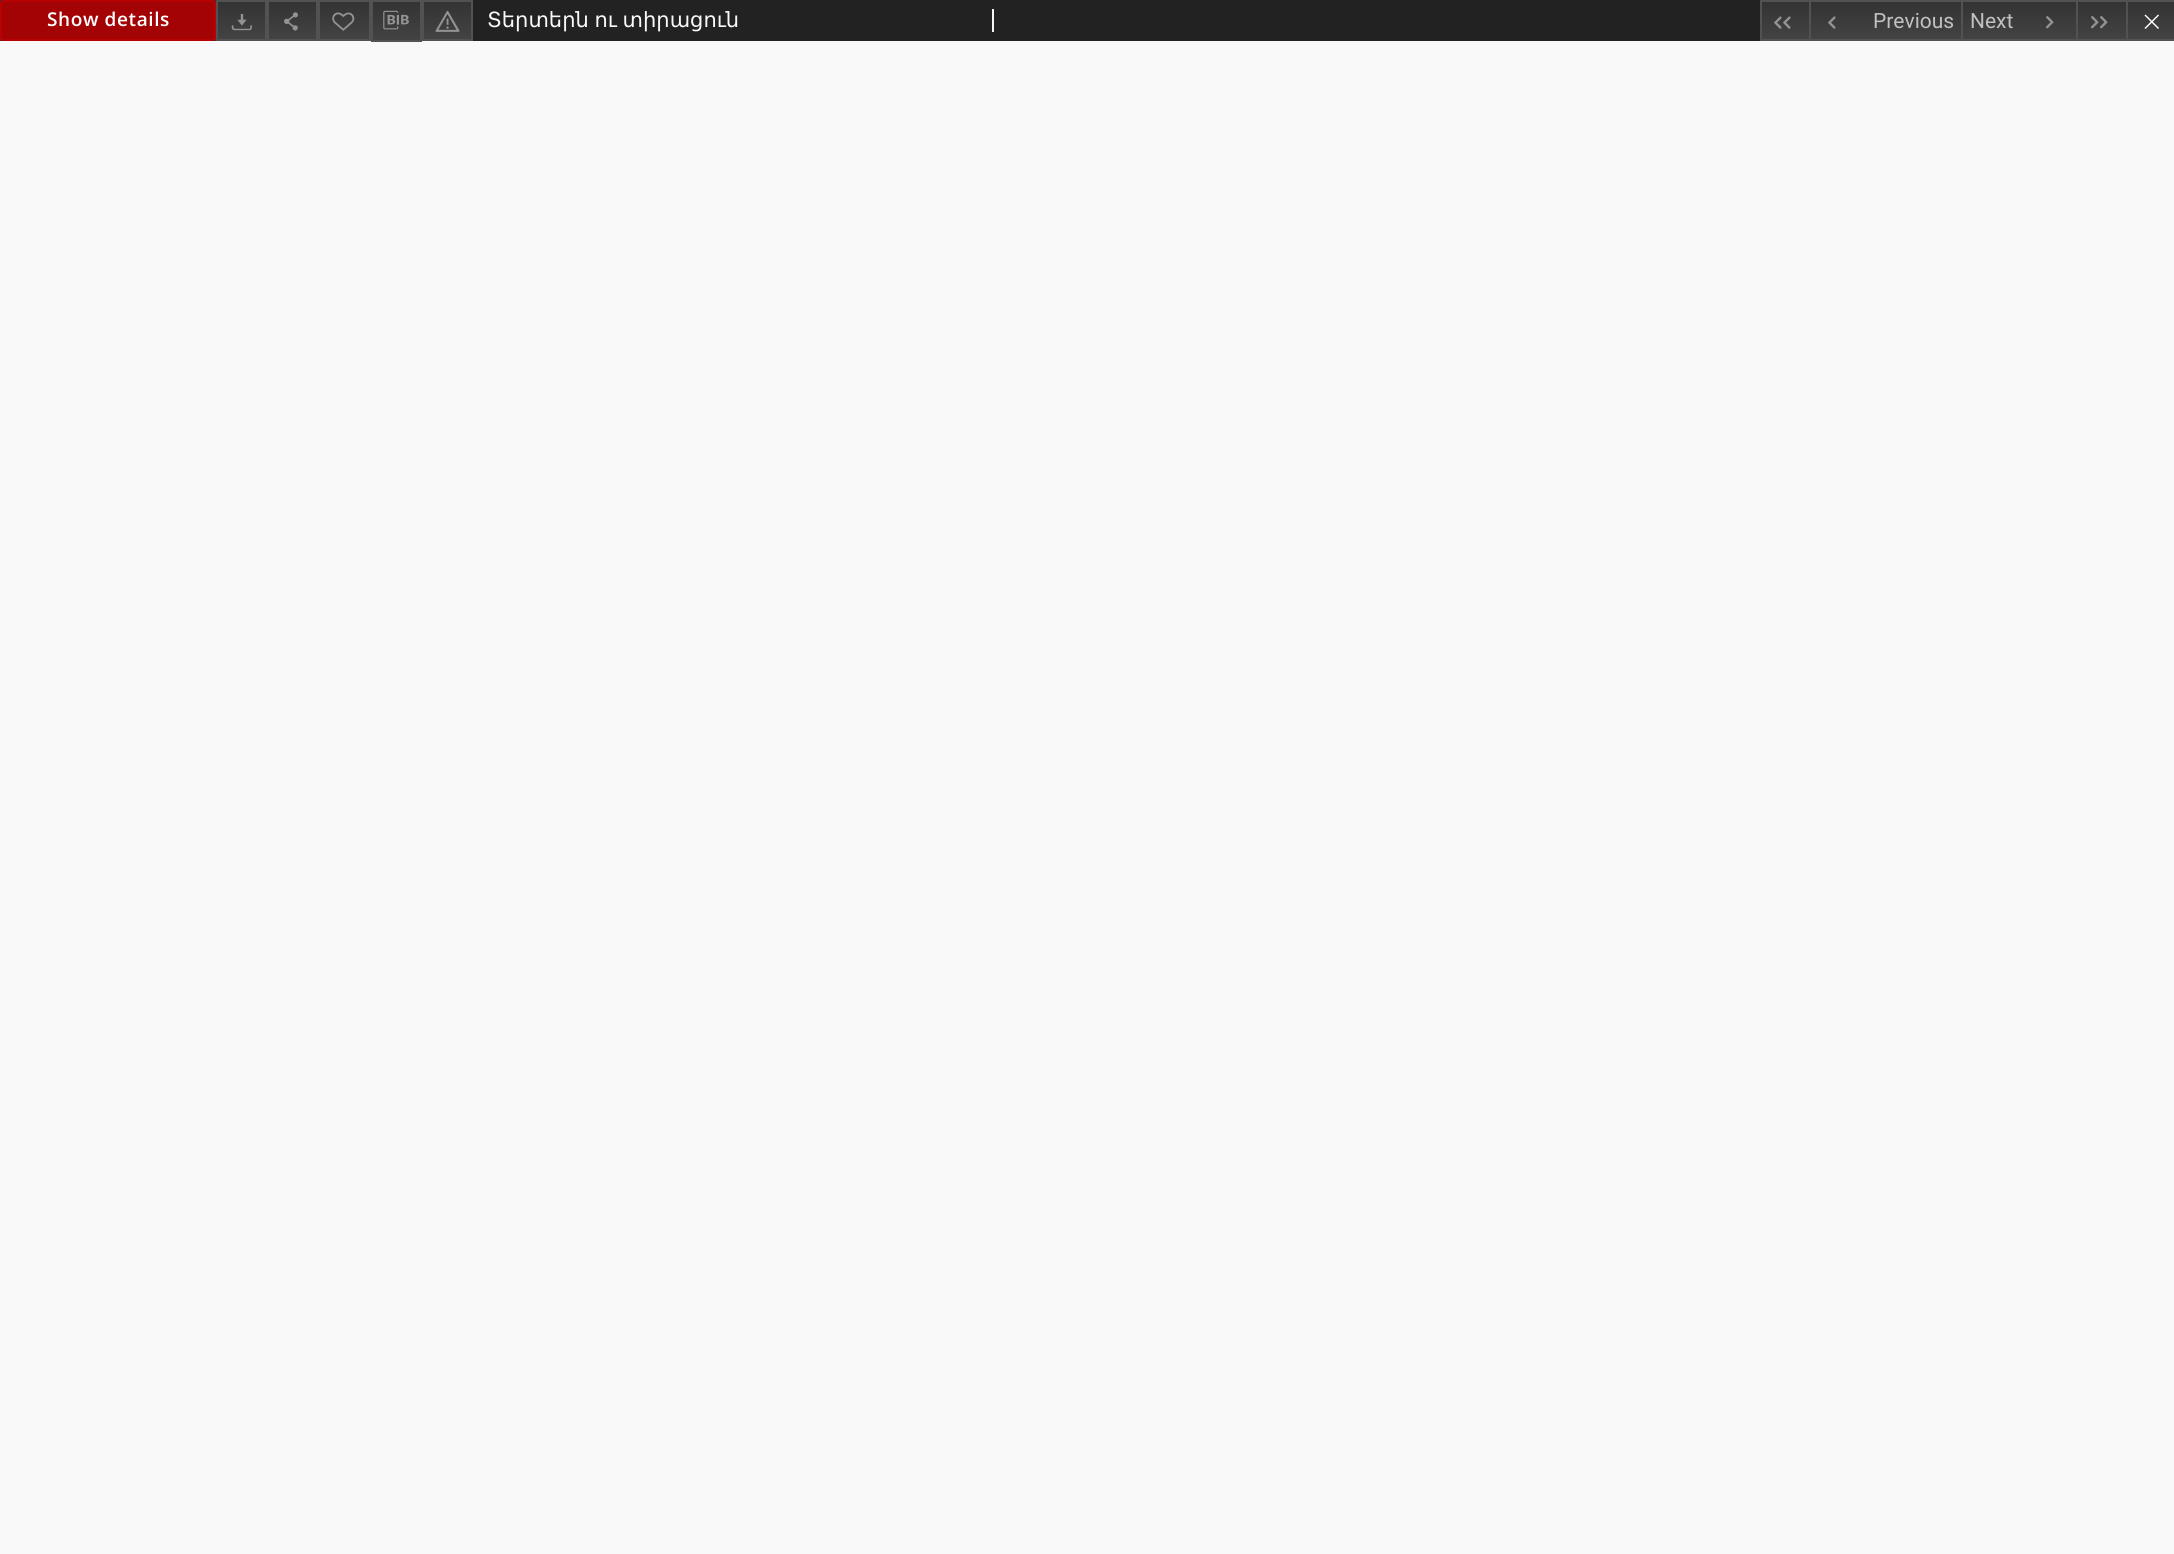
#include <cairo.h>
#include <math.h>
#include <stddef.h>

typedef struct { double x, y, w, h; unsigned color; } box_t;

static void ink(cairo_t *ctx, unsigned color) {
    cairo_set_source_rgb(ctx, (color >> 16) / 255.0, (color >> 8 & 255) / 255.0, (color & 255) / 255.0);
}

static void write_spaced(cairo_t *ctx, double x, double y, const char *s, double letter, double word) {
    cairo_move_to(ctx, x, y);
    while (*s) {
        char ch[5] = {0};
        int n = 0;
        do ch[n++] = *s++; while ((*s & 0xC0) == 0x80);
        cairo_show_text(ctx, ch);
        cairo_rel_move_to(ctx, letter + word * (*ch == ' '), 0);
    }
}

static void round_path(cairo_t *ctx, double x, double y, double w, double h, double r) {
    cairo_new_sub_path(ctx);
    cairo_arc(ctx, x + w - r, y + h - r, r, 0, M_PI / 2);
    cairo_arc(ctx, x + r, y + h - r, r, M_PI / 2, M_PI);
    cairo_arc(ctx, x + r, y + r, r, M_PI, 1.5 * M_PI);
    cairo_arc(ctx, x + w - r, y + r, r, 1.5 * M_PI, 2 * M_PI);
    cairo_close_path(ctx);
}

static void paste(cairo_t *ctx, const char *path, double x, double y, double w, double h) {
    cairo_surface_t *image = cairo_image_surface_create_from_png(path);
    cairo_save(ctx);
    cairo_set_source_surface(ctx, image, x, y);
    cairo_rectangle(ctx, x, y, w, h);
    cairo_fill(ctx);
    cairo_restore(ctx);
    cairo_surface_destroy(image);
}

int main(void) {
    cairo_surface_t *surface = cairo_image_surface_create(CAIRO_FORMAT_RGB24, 2174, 1554);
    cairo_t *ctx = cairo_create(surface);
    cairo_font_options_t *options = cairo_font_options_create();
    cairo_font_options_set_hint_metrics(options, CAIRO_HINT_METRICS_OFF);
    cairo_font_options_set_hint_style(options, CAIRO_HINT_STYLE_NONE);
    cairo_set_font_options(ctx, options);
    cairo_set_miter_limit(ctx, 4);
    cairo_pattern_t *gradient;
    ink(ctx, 0xF9F9F9);
    cairo_paint(ctx);
    ink(ctx, 0x333333);
    cairo_rectangle(ctx, 0, 0, 216, 41);
    cairo_fill(ctx);
    ink(ctx, 0xA30304);
    round_path(ctx, 1, 1, 214, 39, 2);
    cairo_fill_preserve(ctx);
    ink(ctx, 0xB70203);
    cairo_stroke(ctx);
    cairo_select_font_face(ctx, "Open Sans SemiBold", CAIRO_FONT_SLANT_NORMAL, CAIRO_FONT_WEIGHT_NORMAL);
    cairo_set_font_size(ctx, 19);
    ink(ctx, 0xFFFFFF);
    write_spaced(ctx, 47, 26, "Show details", 0.6, 0);
    gradient = cairo_pattern_create_linear(242, 1.5, 242, 39);
    cairo_pattern_add_color_stop_rgba(gradient, 0, 0.2, 0.2, 0.2, 1);
    cairo_pattern_add_color_stop_rgba(gradient, 1, 0.263, 0.263, 0.263, 1);
    cairo_set_source(ctx, gradient);
    cairo_pattern_destroy(gradient);
    cairo_rectangle(ctx, 218, 2, 47, 37);
    cairo_fill(ctx);
    cairo_rectangle(ctx, 217, 1, 49, 39);
    ink(ctx, 0x525252);
    cairo_stroke(ctx);
    paste(ctx, "media/1.png", 231, 13, 21, 18);
    gradient = cairo_pattern_create_linear(293, 1.5, 293, 39);
    cairo_pattern_add_color_stop_rgba(gradient, 0, 0.2, 0.2, 0.2, 1);
    cairo_pattern_add_color_stop_rgba(gradient, 1, 0.263, 0.263, 0.263, 1);
    cairo_set_source(ctx, gradient);
    cairo_pattern_destroy(gradient);
    cairo_rectangle(ctx, 269, 2, 47, 37);
    cairo_fill(ctx);
    cairo_rectangle(ctx, 268, 1, 49, 39);
    ink(ctx, 0x525252);
    cairo_stroke(ctx);
    paste(ctx, "media/2.png", 284, 12, 14, 19);
    gradient = cairo_pattern_create_linear(344, 1.5, 344, 39);
    cairo_pattern_add_color_stop_rgba(gradient, 0, 0.2, 0.2, 0.2, 1);
    cairo_pattern_add_color_stop_rgba(gradient, 1, 0.263, 0.263, 0.263, 1);
    cairo_set_source(ctx, gradient);
    cairo_pattern_destroy(gradient);
    cairo_rectangle(ctx, 320, 2, 49, 37);
    cairo_fill(ctx);
    cairo_rectangle(ctx, 319, 1, 51, 39);
    ink(ctx, 0x525252);
    cairo_stroke(ctx);
    paste(ctx, "media/3.png", 332, 12, 23, 19);
    gradient = cairo_pattern_create_linear(396, 1.5, 396, 41);
    cairo_pattern_add_color_stop_rgba(gradient, 0, 0.2, 0.2, 0.2, 1);
    cairo_pattern_add_color_stop_rgba(gradient, 1, 0.263, 0.263, 0.263, 1);
    cairo_set_source(ctx, gradient);
    cairo_pattern_destroy(gradient);
    cairo_rectangle(ctx, 373, 2, 47, 38);
    cairo_fill(ctx);
    cairo_rectangle(ctx, 372, 1, 49, 40);
    ink(ctx, 0x525252);
    cairo_stroke(ctx);
    paste(ctx, "media/4.png", 383, 10, 26, 20);
    gradient = cairo_pattern_create_linear(447, 1.5, 447, 39);
    cairo_pattern_add_color_stop_rgba(gradient, 0, 0.2, 0.2, 0.2, 1);
    cairo_pattern_add_color_stop_rgba(gradient, 1, 0.263, 0.263, 0.263, 1);
    cairo_set_source(ctx, gradient);
    cairo_pattern_destroy(gradient);
    cairo_rectangle(ctx, 424, 2, 47, 37);
    cairo_fill(ctx);
    cairo_rectangle(ctx, 423, 1, 49, 39);
    ink(ctx, 0x525252);
    cairo_stroke(ctx);
    paste(ctx, "media/5.png", 435, 10, 25, 22);
    ink(ctx, 0x222222);
    cairo_rectangle(ctx, 473, 0, 1287, 41);
    cairo_fill(ctx);
    ink(ctx, 0xF5F5F5);
    cairo_rectangle(ctx, 992, 9, 2, 23);
    cairo_fill(ctx);
    cairo_select_font_face(ctx, "DejaVu Sans", CAIRO_FONT_SLANT_NORMAL, CAIRO_FONT_WEIGHT_NORMAL);
    cairo_set_font_size(ctx, 21);
    ink(ctx, 0xF9F9F9);
    write_spaced(ctx, 487, 27, "Տերտերն ու տիրացուն", 0, -1);
    gradient = cairo_pattern_create_linear(1785, 1.5, 1785, 39);
    cairo_pattern_add_color_stop_rgba(gradient, 0, 0.2, 0.2, 0.2, 1);
    cairo_pattern_add_color_stop_rgba(gradient, 1, 0.263, 0.263, 0.263, 1);
    cairo_set_source(ctx, gradient);
    cairo_pattern_destroy(gradient);
    cairo_rectangle(ctx, 1762, 2, 47, 37);
    cairo_fill(ctx);
    {
        static const box_t items[] = {
            {1760, 0, 414, 2, 0x525252},
            {1760, 39, 414, 2, 0x525252},
            {1760, 0, 2, 41, 0x525252},
        };
        for (size_t i = 0; i < sizeof items / sizeof *items; i++) {
            ink(ctx, items[i].color);
            cairo_rectangle(ctx, items[i].x, items[i].y, items[i].w, items[i].h);
            cairo_fill(ctx);
        }
    }
    paste(ctx, "media/6.png", 1774, 16, 8, 13);
    paste(ctx, "media/6.png", 1783, 16, 8, 13);
    gradient = cairo_pattern_create_linear(1886, 1.5, 1886, 39);
    cairo_pattern_add_color_stop_rgba(gradient, 0, 0.2, 0.2, 0.2, 1);
    cairo_pattern_add_color_stop_rgba(gradient, 1, 0.263, 0.263, 0.263, 1);
    cairo_set_source(ctx, gradient);
    cairo_pattern_destroy(gradient);
    cairo_rectangle(ctx, 1811, 2, 150, 37);
    cairo_fill(ctx);
    ink(ctx, 0x525252);
    cairo_rectangle(ctx, 1809, 0, 2, 41);
    cairo_fill(ctx);
    paste(ctx, "media/6.png", 1828, 16, 8, 13);
    cairo_select_font_face(ctx, "Roboto", CAIRO_FONT_SLANT_NORMAL, CAIRO_FONT_WEIGHT_NORMAL);
    ink(ctx, 0xC1C1C1);
    cairo_move_to(ctx, 1873, 28);
    cairo_show_text(ctx, "Previous");
    gradient = cairo_pattern_create_linear(2019, 1.5, 2019, 39);
    cairo_pattern_add_color_stop_rgba(gradient, 0, 0.2, 0.2, 0.2, 1);
    cairo_pattern_add_color_stop_rgba(gradient, 1, 0.263, 0.263, 0.263, 1);
    cairo_set_source(ctx, gradient);
    cairo_pattern_destroy(gradient);
    cairo_rectangle(ctx, 1963, 2, 113, 37);
    cairo_fill(ctx);
    ink(ctx, 0x525252);
    cairo_rectangle(ctx, 1961, 0, 2, 41);
    cairo_fill(ctx);
    ink(ctx, 0xC1C1C1);
    cairo_move_to(ctx, 1970, 28);
    cairo_show_text(ctx, "Next");
    paste(ctx, "media/7.png", 2046, 16, 8, 13);
    gradient = cairo_pattern_create_linear(2102, 1.5, 2102, 39);
    cairo_pattern_add_color_stop_rgba(gradient, 0, 0.2, 0.2, 0.2, 1);
    cairo_pattern_add_color_stop_rgba(gradient, 1, 0.263, 0.263, 0.263, 1);
    cairo_set_source(ctx, gradient);
    cairo_pattern_destroy(gradient);
    cairo_rectangle(ctx, 2078, 2, 48, 37);
    cairo_fill(ctx);
    ink(ctx, 0x525252);
    cairo_rectangle(ctx, 2076, 0, 2, 41);
    cairo_fill(ctx);
    paste(ctx, "media/7.png", 2091, 16, 8, 13);
    paste(ctx, "media/7.png", 2100, 16, 8, 13);
    gradient = cairo_pattern_create_linear(2151, 1.5, 2151, 39);
    cairo_pattern_add_color_stop_rgba(gradient, 0, 0.2, 0.2, 0.2, 1);
    cairo_pattern_add_color_stop_rgba(gradient, 1, 0.263, 0.263, 0.263, 1);
    cairo_set_source(ctx, gradient);
    cairo_pattern_destroy(gradient);
    cairo_rectangle(ctx, 2128, 2, 46, 37);
    cairo_fill(ctx);
    ink(ctx, 0x525252);
    cairo_rectangle(ctx, 2126, 0, 2, 41);
    cairo_fill(ctx);
    ink(ctx, 0xFFFFFF);
    cairo_new_path(ctx);
    cairo_move_to(ctx, 2144.5, 28);
    cairo_line_to(ctx, 2158, 14.5);
    cairo_line_to(ctx, 2159, 15.5);
    cairo_line_to(ctx, 2145.5, 29);
    cairo_close_path(ctx);
    cairo_fill(ctx);
    cairo_new_path(ctx);
    cairo_move_to(ctx, 2145.5, 14.5);
    cairo_line_to(ctx, 2159, 28);
    cairo_line_to(ctx, 2158, 29);
    cairo_line_to(ctx, 2144.5, 15.5);
    cairo_close_path(ctx);
    cairo_fill(ctx);
    cairo_surface_write_to_png(surface, "image.png");
    cairo_font_options_destroy(options);
    cairo_destroy(ctx);
    cairo_surface_destroy(surface);
    return 0;
}
